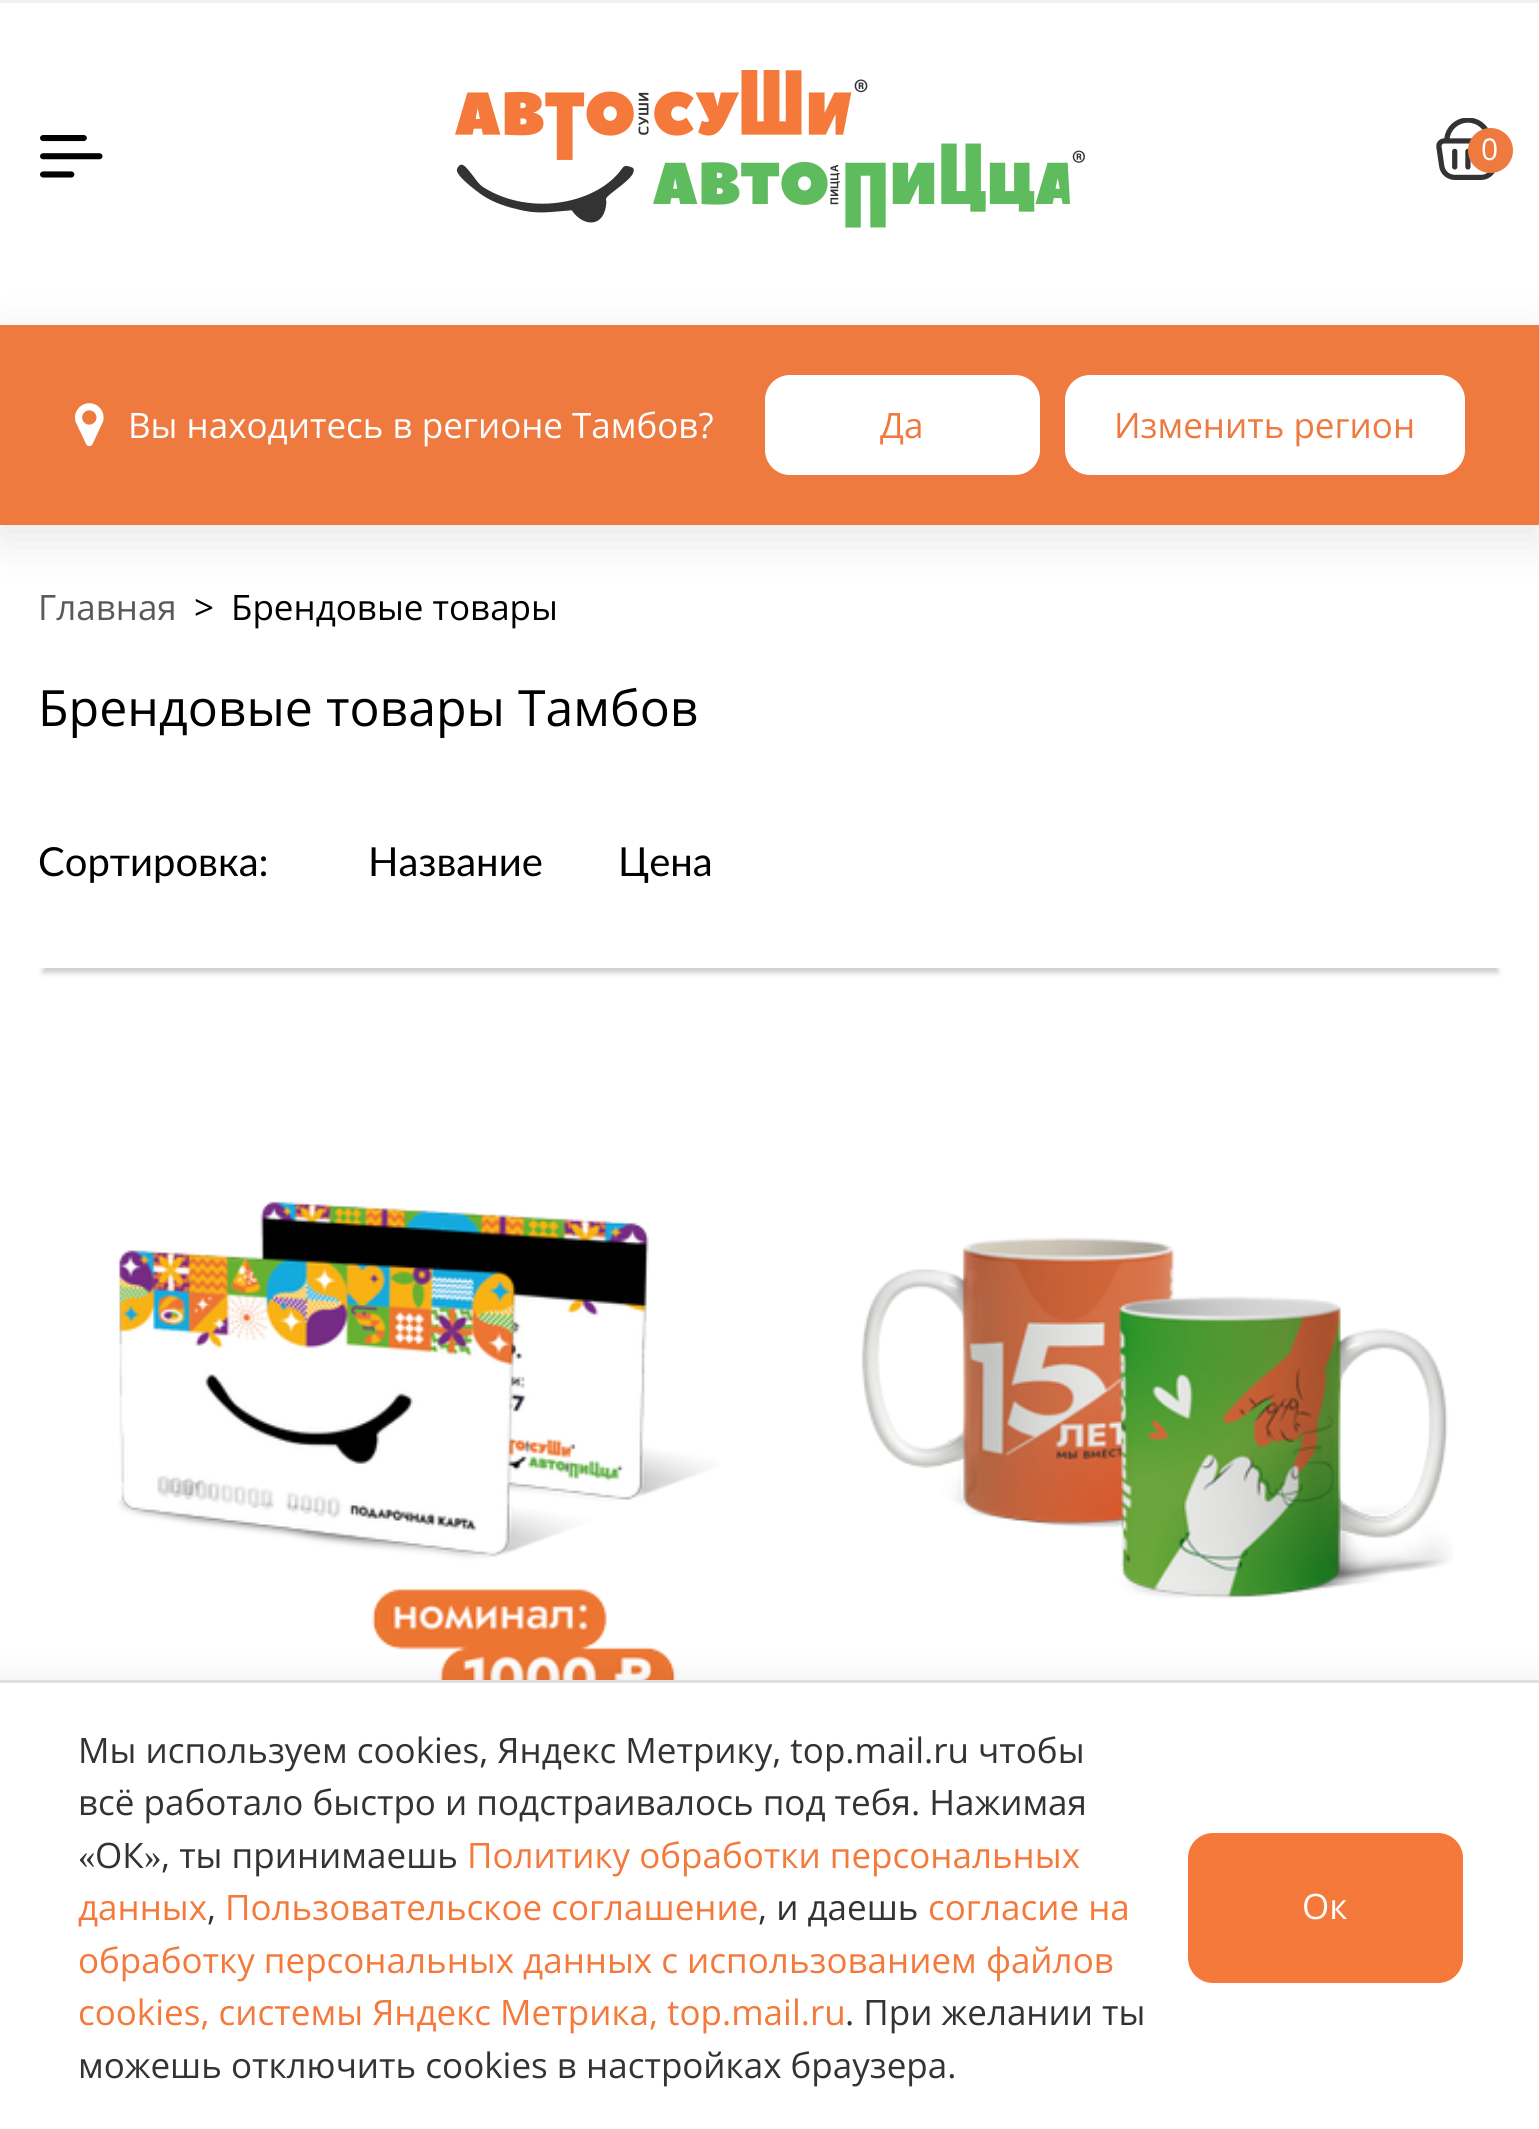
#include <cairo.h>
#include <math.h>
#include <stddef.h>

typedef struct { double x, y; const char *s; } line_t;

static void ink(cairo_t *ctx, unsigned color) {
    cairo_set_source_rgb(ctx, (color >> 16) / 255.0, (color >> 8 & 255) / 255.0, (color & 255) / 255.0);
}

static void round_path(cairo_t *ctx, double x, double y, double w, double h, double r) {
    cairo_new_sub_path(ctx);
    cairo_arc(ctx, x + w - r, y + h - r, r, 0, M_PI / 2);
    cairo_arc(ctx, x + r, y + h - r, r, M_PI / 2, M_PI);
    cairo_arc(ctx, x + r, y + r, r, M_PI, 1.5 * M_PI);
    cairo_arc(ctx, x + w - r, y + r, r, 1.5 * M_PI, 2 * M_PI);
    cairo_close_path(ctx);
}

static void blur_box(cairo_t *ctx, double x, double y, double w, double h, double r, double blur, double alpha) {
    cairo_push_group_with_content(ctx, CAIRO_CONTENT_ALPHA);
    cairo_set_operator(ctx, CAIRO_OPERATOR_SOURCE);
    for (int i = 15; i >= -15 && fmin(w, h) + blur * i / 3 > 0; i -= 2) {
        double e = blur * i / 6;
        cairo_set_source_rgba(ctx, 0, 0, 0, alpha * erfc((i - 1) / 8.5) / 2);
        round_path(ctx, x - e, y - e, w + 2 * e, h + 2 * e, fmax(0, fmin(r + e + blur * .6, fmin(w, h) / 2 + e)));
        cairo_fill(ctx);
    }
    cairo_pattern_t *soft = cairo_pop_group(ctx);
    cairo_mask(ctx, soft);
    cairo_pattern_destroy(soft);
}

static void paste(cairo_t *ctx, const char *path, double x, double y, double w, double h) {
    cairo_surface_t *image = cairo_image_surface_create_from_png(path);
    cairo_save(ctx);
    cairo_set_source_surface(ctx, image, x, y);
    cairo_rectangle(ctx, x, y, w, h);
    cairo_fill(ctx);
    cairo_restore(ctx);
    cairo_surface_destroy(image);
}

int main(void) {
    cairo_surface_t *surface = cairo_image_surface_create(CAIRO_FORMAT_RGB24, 1539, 2129);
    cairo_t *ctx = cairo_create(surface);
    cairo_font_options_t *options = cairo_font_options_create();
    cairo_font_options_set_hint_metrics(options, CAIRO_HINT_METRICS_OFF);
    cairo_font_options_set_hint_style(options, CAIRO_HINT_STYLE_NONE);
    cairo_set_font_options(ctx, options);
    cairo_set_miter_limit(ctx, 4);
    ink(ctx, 0xFFFFFF);
    cairo_paint(ctx);
    ink(ctx, 0xF2F2F2);
    cairo_rectangle(ctx, 0, 0, 1539, 3);
    cairo_fill(ctx);
    paste(ctx, "media/1.png", 40, 135, 63, 43);
    paste(ctx, "media/2.png", 455, 70, 630, 158);
    paste(ctx, "media/3.png", 1436, 118, 59, 62);
    ink(ctx, 0xEE7A40);
    cairo_arc(ctx, 1490.5, 150.5, 22.5, 0, 2 * M_PI);
    cairo_fill(ctx);
    cairo_select_font_face(ctx, "Open Sans", CAIRO_FONT_SLANT_NORMAL, CAIRO_FONT_WEIGHT_NORMAL);
    cairo_set_font_size(ctx, 30);
    ink(ctx, 0xFFFFFF);
    cairo_move_to(ctx, 1481, 160);
    cairo_show_text(ctx, "0");
    ink(ctx, 0x000000);
    blur_box(ctx, 0, 338, 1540, 200, 0, 24, 0.1);
    ink(ctx, 0xEE7A40);
    cairo_rectangle(ctx, 0, 325, 1539, 200);
    cairo_fill(ctx);
    paste(ctx, "media/4.png", 75, 403, 29, 44);
    cairo_set_font_size(ctx, 35);
    ink(ctx, 0xFFFFFF);
    cairo_move_to(ctx, 128, 438);
    cairo_show_text(ctx, "Вы находитесь в регионе Тамбов?");
    round_path(ctx, 765, 375, 275, 100, 25);
    cairo_fill(ctx);
    ink(ctx, 0xEE7A40);
    cairo_move_to(ctx, 880, 438);
    cairo_show_text(ctx, "Да");
    ink(ctx, 0xFFFFFF);
    round_path(ctx, 1065, 375, 400, 100, 25);
    cairo_fill(ctx);
    ink(ctx, 0xEE7A40);
    cairo_move_to(ctx, 1114, 438);
    cairo_show_text(ctx, "Изменить регион");
    ink(ctx, 0x5A5A5A);
    cairo_move_to(ctx, 38, 620);
    cairo_show_text(ctx, "Главная");
    ink(ctx, 0x000000);
    cairo_move_to(ctx, 194, 620);
    cairo_show_text(ctx, ">");
    cairo_move_to(ctx, 231, 620);
    cairo_show_text(ctx, "Брендовые товары");
    cairo_set_font_size(ctx, 50);
    cairo_move_to(ctx, 38, 726);
    cairo_show_text(ctx, "Брендовые товары Тамбов");
    cairo_save(ctx);
    cairo_set_fill_rule(ctx, CAIRO_FILL_RULE_EVEN_ODD);
    cairo_new_path(ctx);
    cairo_move_to(ctx, 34, 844);
    cairo_line_to(ctx, 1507, 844);
    cairo_line_to(ctx, 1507, 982);
    cairo_line_to(ctx, 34, 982);
    cairo_close_path(ctx);
    cairo_move_to(ctx, 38, 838);
    cairo_line_to(ctx, 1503, 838);
    cairo_line_to(ctx, 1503, 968);
    cairo_line_to(ctx, 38, 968);
    cairo_close_path(ctx);
    cairo_clip(ctx);
    ink(ctx, 0xCECECE);
    blur_box(ctx, 43, 853, 1455, 120, 0, 2.5, 1);
    cairo_restore(ctx);
    cairo_select_font_face(ctx, "Lato", CAIRO_FONT_SLANT_NORMAL, CAIRO_FONT_WEIGHT_NORMAL);
    cairo_set_font_size(ctx, 40);
    {
        static const line_t items[] = {
            {38, 876, "Сортировка:"},
            {368, 876, "Название"},
            {618, 876, "Цена"},
        };
        for (size_t i = 0; i < sizeof items / sizeof *items; i++) {
            cairo_move_to(ctx, items[i].x, items[i].y);
            cairo_show_text(ctx, items[i].s);
        }
    }
    paste(ctx, "media/5.png", 117, 1201, 602, 479);
    paste(ctx, "media/6.png", 861, 1237, 592, 362);
    ink(ctx, 0x000000);
    blur_box(ctx, 0, 1675, 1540, 450, 0, 15, 0.06);
    ink(ctx, 0xFFFFFF);
    cairo_rectangle(ctx, 0, 1683, 1539, 446);
    cairo_fill(ctx);
    ink(ctx, 0xE0E0E0);
    cairo_rectangle(ctx, 0, 1680, 1539, 3);
    cairo_fill(ctx);
    cairo_select_font_face(ctx, "Open Sans", CAIRO_FONT_SLANT_NORMAL, CAIRO_FONT_WEIGHT_NORMAL);
    cairo_set_font_size(ctx, 35);
    ink(ctx, 0x333333);
    cairo_move_to(ctx, 78, 1763);
    cairo_show_text(ctx, "Мы используем cookies, Яндекс Метрику, top.mail.ru чтобы");
    cairo_move_to(ctx, 78, 1815);
    cairo_show_text(ctx, "всё работало быстро и подстраивалось под тебя. Нажимая");
    cairo_select_font_face(ctx, "Liberation Serif", CAIRO_FONT_SLANT_NORMAL, CAIRO_FONT_WEIGHT_NORMAL);
    cairo_move_to(ctx, 78, 1868);
    cairo_show_text(ctx, "«");
    cairo_select_font_face(ctx, "Open Sans", CAIRO_FONT_SLANT_NORMAL, CAIRO_FONT_WEIGHT_NORMAL);
    cairo_move_to(ctx, 95, 1868);
    cairo_show_text(ctx, "ОК");
    cairo_select_font_face(ctx, "Liberation Serif", CAIRO_FONT_SLANT_NORMAL, CAIRO_FONT_WEIGHT_NORMAL);
    cairo_move_to(ctx, 144, 1868);
    cairo_show_text(ctx, "»");
    cairo_select_font_face(ctx, "Open Sans", CAIRO_FONT_SLANT_NORMAL, CAIRO_FONT_WEIGHT_NORMAL);
    cairo_move_to(ctx, 161, 1868);
    cairo_show_text(ctx, ", ты принимаешь");
    ink(ctx, 0xF4793B);
    cairo_move_to(ctx, 467, 1868);
    cairo_show_text(ctx, "Политику обработки персональных");
    cairo_move_to(ctx, 78, 1920);
    cairo_show_text(ctx, "данных");
    ink(ctx, 0x333333);
    cairo_move_to(ctx, 207, 1920);
    cairo_show_text(ctx, ",");
    ink(ctx, 0xF4793B);
    cairo_move_to(ctx, 225, 1920);
    cairo_show_text(ctx, "Пользовательское соглашение");
    ink(ctx, 0x333333);
    cairo_move_to(ctx, 758, 1920);
    cairo_show_text(ctx, ", и даешь");
    ink(ctx, 0xF4793B);
    {
        static const line_t items[] = {
            {928, 1920, "согласие на"},
            {78, 1973, "обработку персональных данных с использованием файлов"},
            {78, 2025, "cookies, системы Яндекс Метрика, top.mail.ru"},
        };
        for (size_t i = 0; i < sizeof items / sizeof *items; i++) {
            cairo_move_to(ctx, items[i].x, items[i].y);
            cairo_show_text(ctx, items[i].s);
        }
    }
    ink(ctx, 0x333333);
    cairo_move_to(ctx, 845, 2025);
    cairo_show_text(ctx, ". При желании ты");
    cairo_move_to(ctx, 78, 2078);
    cairo_show_text(ctx, "можешь отключить cookies в настройках браузера.");
    ink(ctx, 0xF4793B);
    round_path(ctx, 1188, 1833, 275, 150, 25);
    cairo_fill(ctx);
    ink(ctx, 0xFFFFFF);
    cairo_move_to(ctx, 1302, 1919);
    cairo_show_text(ctx, "Ок");
    cairo_surface_write_to_png(surface, "image.png");
    cairo_font_options_destroy(options);
    cairo_destroy(ctx);
    cairo_surface_destroy(surface);
    return 0;
}
